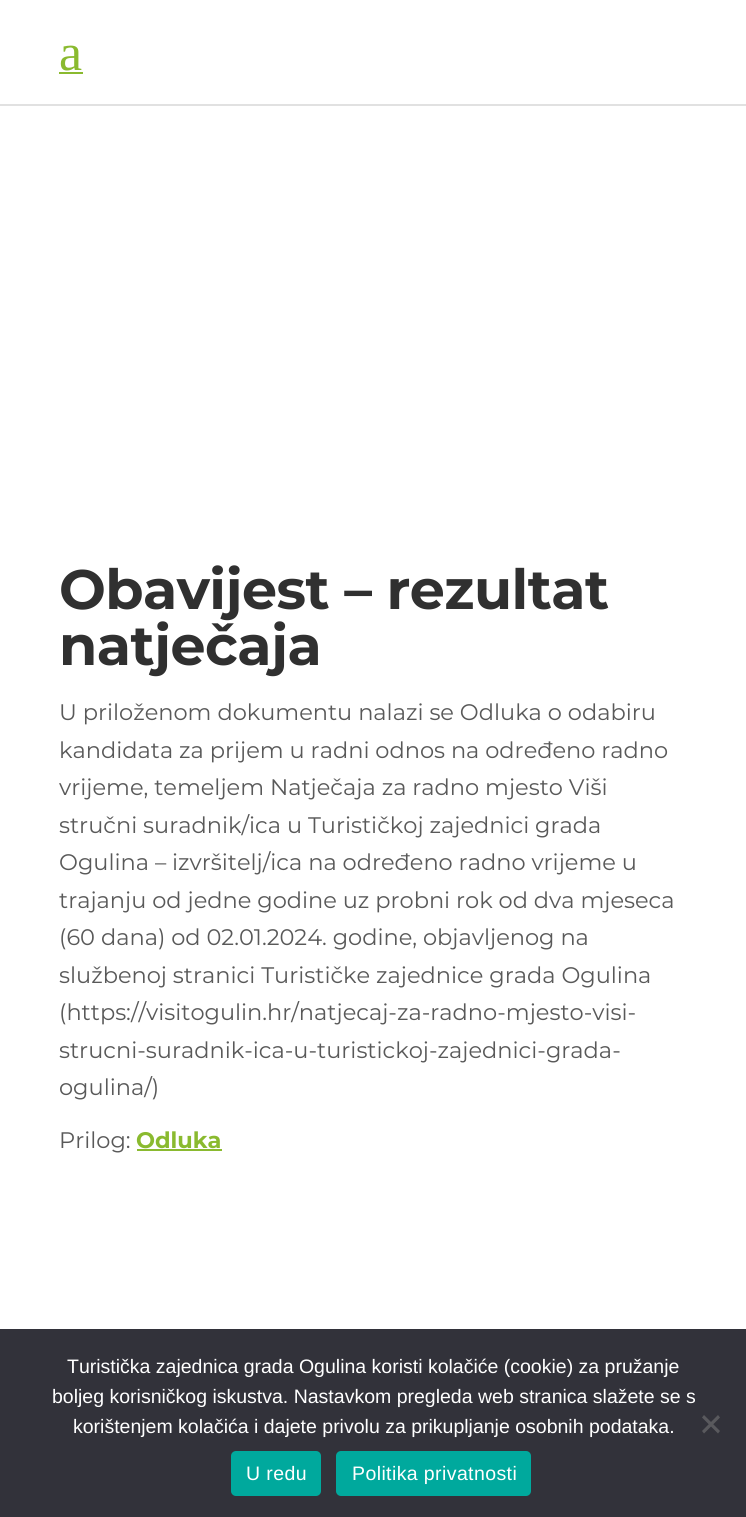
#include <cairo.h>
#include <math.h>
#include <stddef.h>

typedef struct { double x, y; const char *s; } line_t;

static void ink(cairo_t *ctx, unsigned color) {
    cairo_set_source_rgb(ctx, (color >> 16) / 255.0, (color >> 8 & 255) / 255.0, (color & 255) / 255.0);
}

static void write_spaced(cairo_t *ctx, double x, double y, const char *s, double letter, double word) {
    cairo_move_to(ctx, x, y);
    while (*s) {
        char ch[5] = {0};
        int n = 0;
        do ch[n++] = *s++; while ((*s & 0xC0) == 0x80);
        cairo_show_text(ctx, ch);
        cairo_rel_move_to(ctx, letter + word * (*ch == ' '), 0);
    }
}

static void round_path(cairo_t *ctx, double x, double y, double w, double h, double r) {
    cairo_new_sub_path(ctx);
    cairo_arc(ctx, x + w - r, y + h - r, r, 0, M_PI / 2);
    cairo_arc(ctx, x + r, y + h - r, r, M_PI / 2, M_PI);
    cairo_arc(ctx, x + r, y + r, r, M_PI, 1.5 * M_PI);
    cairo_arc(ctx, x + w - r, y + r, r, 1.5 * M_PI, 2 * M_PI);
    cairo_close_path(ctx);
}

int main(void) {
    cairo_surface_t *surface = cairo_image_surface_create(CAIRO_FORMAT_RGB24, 746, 1517);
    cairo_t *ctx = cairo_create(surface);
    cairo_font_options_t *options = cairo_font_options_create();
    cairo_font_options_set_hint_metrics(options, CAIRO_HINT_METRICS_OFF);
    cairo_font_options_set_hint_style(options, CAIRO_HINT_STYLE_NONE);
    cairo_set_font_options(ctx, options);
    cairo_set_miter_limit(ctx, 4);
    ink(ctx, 0xFFFFFF);
    cairo_paint(ctx);
    ink(ctx, 0xE1E1E1);
    cairo_rectangle(ctx, 0, 104, 746, 2);
    cairo_fill(ctx);
    cairo_select_font_face(ctx, "Liberation Serif", CAIRO_FONT_SLANT_NORMAL, CAIRO_FONT_WEIGHT_NORMAL);
    cairo_set_font_size(ctx, 52);
    ink(ctx, 0x8ABA2F);
    cairo_move_to(ctx, 59, 70);
    cairo_show_text(ctx, "a");
    cairo_rectangle(ctx, 59, 72, 24, 2);
    cairo_fill(ctx);
    cairo_select_font_face(ctx, "Montserrat", CAIRO_FONT_SLANT_NORMAL, CAIRO_FONT_WEIGHT_BOLD);
    cairo_set_font_size(ctx, 55.5);
    ink(ctx, 0x303030);
    write_spaced(ctx, 59, 609, "Obavijest – rezultat", -0.55, 0);
    write_spaced(ctx, 59, 665, "natječaja", -0.55, 0);
    cairo_select_font_face(ctx, "Montserrat", CAIRO_FONT_SLANT_NORMAL, CAIRO_FONT_WEIGHT_NORMAL);
    cairo_set_font_size(ctx, 22.5);
    ink(ctx, 0x595959);
    {
        static const line_t items[] = {
            {59, 720, "U priloženom dokumentu nalazi se Odluka o odabiru"},
            {59, 758, "kandidata za prijem u radni odnos na određeno radno"},
            {59, 795, "vrijeme, temeljem Natječaja za radno mjesto Viši"},
            {59, 833, "stručni suradnik/ica u Turističkoj zajednici grada"},
            {59, 870, "Ogulina – izvršitelj/ica na određeno radno vrijeme u"},
            {59, 908, "trajanju od jedne godine uz probni rok od dva mjeseca"},
            {59, 945, "(60 dana) od 02.01.2024. godine, objavljenog na"},
            {59, 983, "službenoj stranici Turističke zajednice grada Ogulina"},
            {59, 1020, "(https://visitogulin.hr/natjecaj-za-radno-mjesto-visi-"},
            {59, 1058, "strucni-suradnik-ica-u-turistickoj-zajednici-grada-"},
            {59, 1095, "ogulina/)"},
            {59, 1148, "Prilog:"},
        };
        for (size_t i = 0; i < sizeof items / sizeof *items; i++) {
            cairo_move_to(ctx, items[i].x, items[i].y);
            cairo_show_text(ctx, items[i].s);
        }
    }
    cairo_select_font_face(ctx, "Montserrat", CAIRO_FONT_SLANT_NORMAL, CAIRO_FONT_WEIGHT_BOLD);
    ink(ctx, 0x8ABA2F);
    cairo_move_to(ctx, 136, 1148);
    cairo_show_text(ctx, "Odluka");
    cairo_rectangle(ctx, 137, 1149, 85, 2);
    cairo_fill(ctx);
    ink(ctx, 0x32323A);
    cairo_rectangle(ctx, 0, 1329, 746, 188);
    cairo_fill(ctx);
    cairo_select_font_face(ctx, "Liberation Sans", CAIRO_FONT_SLANT_NORMAL, CAIRO_FONT_WEIGHT_NORMAL);
    cairo_set_font_size(ctx, 19.5);
    ink(ctx, 0xFFFFFF);
    {
        static const line_t items[] = {
            {67, 1373, "Turistička zajednica grada Ogulina koristi kolačiće (cookie) za pružanje"},
            {52, 1403, "boljeg korisničkog iskustva. Nastavkom pregleda web stranica slažete se s"},
            {73, 1433, "korištenjem kolačića i dajete privolu za prikupljanje osobnih podataka."},
        };
        for (size_t i = 0; i < sizeof items / sizeof *items; i++) {
            cairo_move_to(ctx, items[i].x, items[i].y);
            cairo_show_text(ctx, items[i].s);
        }
    }
    ink(ctx, 0x59595D);
    cairo_new_path(ctx);
    cairo_move_to(ctx, 718, 1415);
    cairo_line_to(ctx, 720, 1417.5);
    cairo_line_to(ctx, 704, 1433.5);
    cairo_line_to(ctx, 702, 1431);
    cairo_close_path(ctx);
    cairo_fill(ctx);
    cairo_new_path(ctx);
    cairo_move_to(ctx, 702, 1417.5);
    cairo_line_to(ctx, 704, 1415);
    cairo_line_to(ctx, 720, 1431);
    cairo_line_to(ctx, 718, 1433.5);
    cairo_close_path(ctx);
    cairo_fill(ctx);
    ink(ctx, 0x00A99D);
    round_path(ctx, 231, 1451, 90, 45, 5);
    cairo_fill(ctx);
    ink(ctx, 0xFFFFFF);
    write_spaced(ctx, 246, 1480, "U redu", 0.4, 0);
    ink(ctx, 0x00A99D);
    round_path(ctx, 336, 1451, 195, 45, 5);
    cairo_fill(ctx);
    ink(ctx, 0xFFFFFF);
    write_spaced(ctx, 352, 1480, "Politika privatnosti", 0.4, 0);
    cairo_surface_write_to_png(surface, "image.png");
    cairo_font_options_destroy(options);
    cairo_destroy(ctx);
    cairo_surface_destroy(surface);
    return 0;
}
